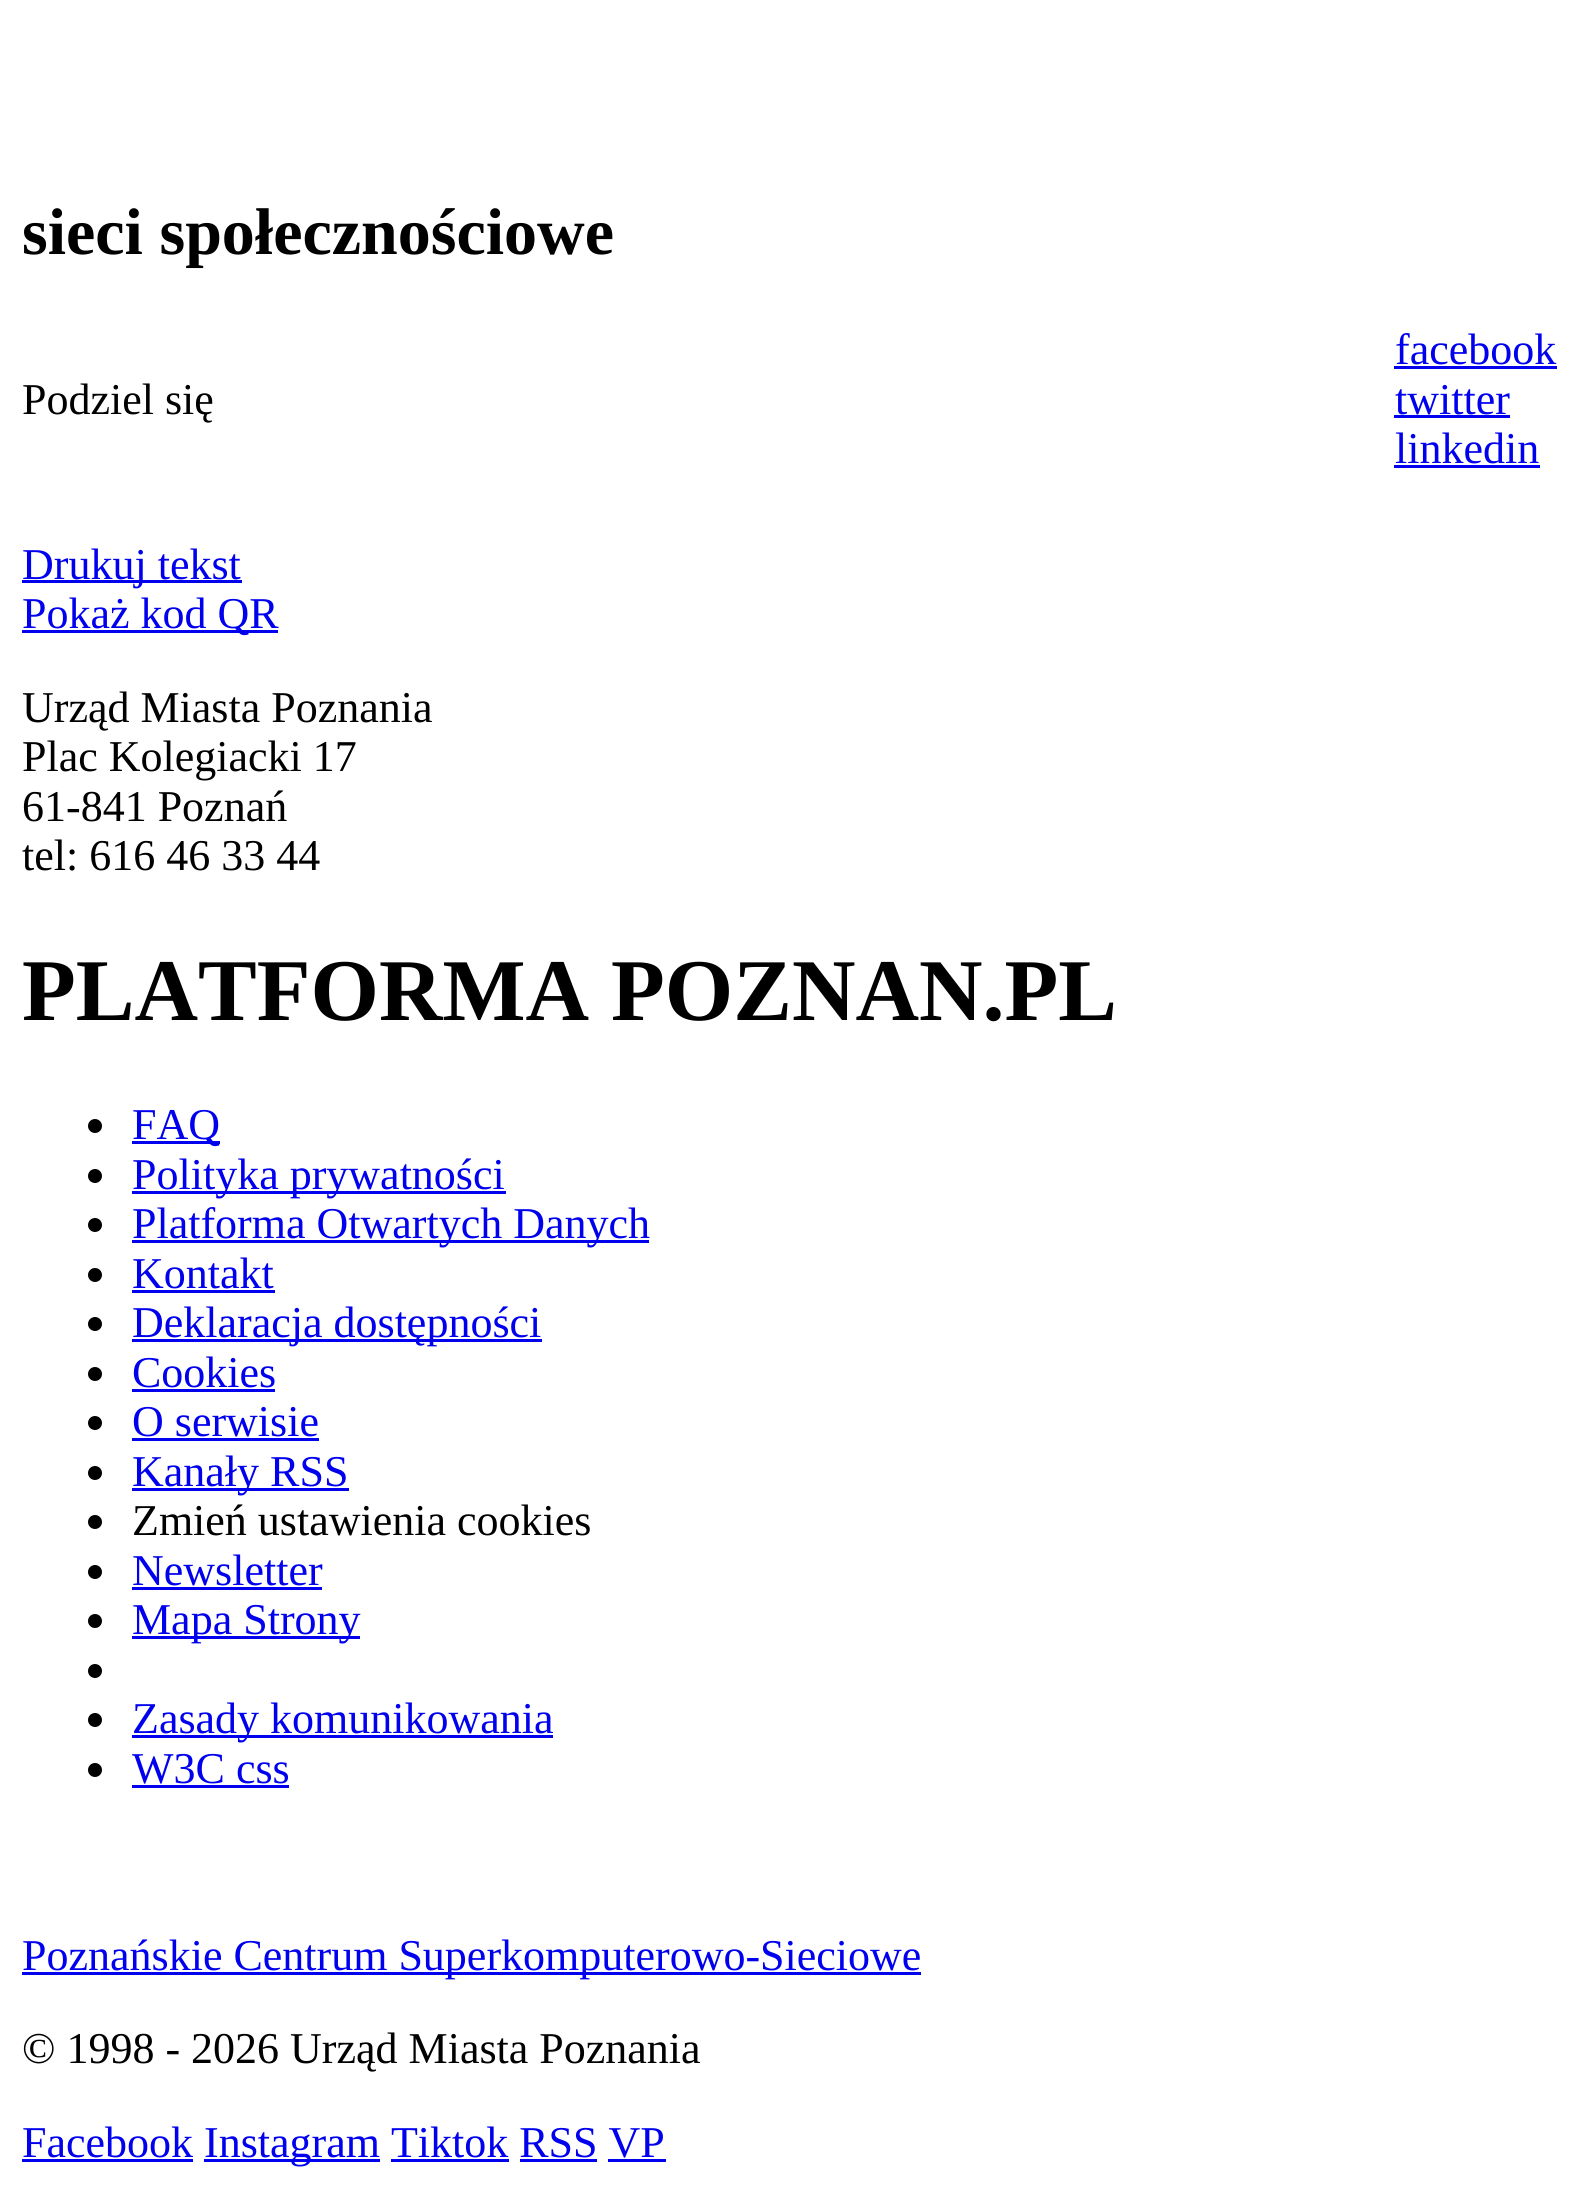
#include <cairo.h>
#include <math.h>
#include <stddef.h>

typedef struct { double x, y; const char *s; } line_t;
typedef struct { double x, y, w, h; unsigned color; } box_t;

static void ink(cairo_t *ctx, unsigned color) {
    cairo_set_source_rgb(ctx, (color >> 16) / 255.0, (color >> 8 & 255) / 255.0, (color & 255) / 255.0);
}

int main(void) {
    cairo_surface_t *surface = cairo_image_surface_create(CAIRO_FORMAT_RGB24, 1577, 2188);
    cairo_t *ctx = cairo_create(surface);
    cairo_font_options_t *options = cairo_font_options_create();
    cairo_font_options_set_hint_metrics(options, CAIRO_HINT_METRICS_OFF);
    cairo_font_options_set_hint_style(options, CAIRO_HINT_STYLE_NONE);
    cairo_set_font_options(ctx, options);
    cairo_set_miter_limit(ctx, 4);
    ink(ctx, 0xFFFFFF);
    cairo_paint(ctx);
    cairo_select_font_face(ctx, "Liberation Serif", CAIRO_FONT_SLANT_NORMAL, CAIRO_FONT_WEIGHT_BOLD);
    cairo_set_font_size(ctx, 66);
    ink(ctx, 0x000000);
    cairo_move_to(ctx, 22, 254);
    cairo_show_text(ctx, "sieci społecznościowe");
    cairo_select_font_face(ctx, "Liberation Serif", CAIRO_FONT_SLANT_NORMAL, CAIRO_FONT_WEIGHT_NORMAL);
    cairo_set_font_size(ctx, 44);
    cairo_move_to(ctx, 22, 414);
    cairo_show_text(ctx, "Podziel się");
    ink(ctx, 0x0000EE);
    cairo_move_to(ctx, 1395, 364);
    cairo_show_text(ctx, "facebook");
    cairo_rectangle(ctx, 1394, 366, 163, 3);
    cairo_fill(ctx);
    cairo_move_to(ctx, 1395, 414);
    cairo_show_text(ctx, "twitter");
    cairo_rectangle(ctx, 1394, 415, 116, 3);
    cairo_fill(ctx);
    cairo_move_to(ctx, 1395, 463);
    cairo_show_text(ctx, "linkedin");
    cairo_rectangle(ctx, 1394, 465, 146, 3);
    cairo_fill(ctx);
    cairo_rectangle(ctx, 22, 580, 220, 3);
    cairo_fill(ctx);
    cairo_move_to(ctx, 22, 579);
    cairo_show_text(ctx, "Drukuj tekst");
    cairo_rectangle(ctx, 22, 630, 256, 3);
    cairo_fill(ctx);
    cairo_move_to(ctx, 22, 628);
    cairo_show_text(ctx, "Pokaż kod QR");
    ink(ctx, 0x000000);
    {
        static const line_t items[] = {
            {22, 722, "Urząd Miasta Poznania"},
            {22, 771, "Plac Kolegiacki 17"},
            {22, 821, "61-841 Poznań"},
            {22, 870, "tel: 616 46 33 44"},
        };
        for (size_t i = 0; i < sizeof items / sizeof *items; i++) {
            cairo_move_to(ctx, items[i].x, items[i].y);
            cairo_show_text(ctx, items[i].s);
        }
    }
    cairo_select_font_face(ctx, "Liberation Serif", CAIRO_FONT_SLANT_NORMAL, CAIRO_FONT_WEIGHT_BOLD);
    cairo_set_font_size(ctx, 88);
    cairo_move_to(ctx, 22, 1020);
    cairo_show_text(ctx, "PLATFORMA POZNAN.PL");
    cairo_new_path(ctx);
    cairo_arc(ctx, 95, 1126, 7, 0, 2 * M_PI);
    cairo_fill(ctx);
    ink(ctx, 0x0000EE);
    cairo_rectangle(ctx, 132, 1141, 88, 3);
    cairo_fill(ctx);
    cairo_select_font_face(ctx, "Liberation Serif", CAIRO_FONT_SLANT_NORMAL, CAIRO_FONT_WEIGHT_NORMAL);
    cairo_set_font_size(ctx, 44);
    cairo_move_to(ctx, 132, 1139);
    cairo_show_text(ctx, "FAQ");
    ink(ctx, 0x000000);
    cairo_new_path(ctx);
    cairo_arc(ctx, 95, 1176, 7, 0, 2 * M_PI);
    cairo_fill(ctx);
    ink(ctx, 0x0000EE);
    cairo_rectangle(ctx, 132, 1191, 374, 3);
    cairo_fill(ctx);
    cairo_move_to(ctx, 132, 1189);
    cairo_show_text(ctx, "Polityka prywatności");
    ink(ctx, 0x000000);
    cairo_new_path(ctx);
    cairo_arc(ctx, 95, 1225, 7, 0, 2 * M_PI);
    cairo_fill(ctx);
    ink(ctx, 0x0000EE);
    cairo_rectangle(ctx, 132, 1240, 517, 3);
    cairo_fill(ctx);
    cairo_move_to(ctx, 132, 1238);
    cairo_show_text(ctx, "Platforma Otwartych Danych");
    ink(ctx, 0x000000);
    cairo_new_path(ctx);
    cairo_arc(ctx, 95, 1275, 7, 0, 2 * M_PI);
    cairo_fill(ctx);
    ink(ctx, 0x0000EE);
    cairo_move_to(ctx, 132, 1288);
    cairo_show_text(ctx, "Kontakt");
    cairo_rectangle(ctx, 132, 1290, 143, 3);
    cairo_fill(ctx);
    ink(ctx, 0x000000);
    cairo_arc(ctx, 95, 1324, 7, 0, 2 * M_PI);
    cairo_fill(ctx);
    ink(ctx, 0x0000EE);
    cairo_rectangle(ctx, 132, 1339, 410, 3);
    cairo_fill(ctx);
    cairo_move_to(ctx, 132, 1337);
    cairo_show_text(ctx, "Deklaracja dostępności");
    ink(ctx, 0x000000);
    cairo_new_path(ctx);
    cairo_arc(ctx, 95, 1374, 7, 0, 2 * M_PI);
    cairo_fill(ctx);
    ink(ctx, 0x0000EE);
    cairo_move_to(ctx, 132, 1387);
    cairo_show_text(ctx, "Cookies");
    cairo_rectangle(ctx, 132, 1389, 143, 3);
    cairo_fill(ctx);
    ink(ctx, 0x000000);
    cairo_arc(ctx, 95, 1423, 7, 0, 2 * M_PI);
    cairo_fill(ctx);
    ink(ctx, 0x0000EE);
    cairo_move_to(ctx, 132, 1436);
    cairo_show_text(ctx, "O serwisie");
    cairo_rectangle(ctx, 132, 1438, 187, 3);
    cairo_fill(ctx);
    ink(ctx, 0x000000);
    cairo_arc(ctx, 95, 1473, 7, 0, 2 * M_PI);
    cairo_fill(ctx);
    ink(ctx, 0x0000EE);
    cairo_rectangle(ctx, 132, 1488, 217, 3);
    cairo_fill(ctx);
    cairo_move_to(ctx, 132, 1486);
    cairo_show_text(ctx, "Kanały RSS");
    ink(ctx, 0x000000);
    cairo_new_path(ctx);
    cairo_arc(ctx, 95, 1522, 7, 0, 2 * M_PI);
    cairo_fill(ctx);
    cairo_move_to(ctx, 132, 1535);
    cairo_show_text(ctx, "Zmień ustawienia cookies");
    cairo_new_path(ctx);
    cairo_arc(ctx, 95, 1572, 7, 0, 2 * M_PI);
    cairo_fill(ctx);
    ink(ctx, 0x0000EE);
    cairo_move_to(ctx, 132, 1585);
    cairo_show_text(ctx, "Newsletter");
    cairo_rectangle(ctx, 132, 1587, 190, 3);
    cairo_fill(ctx);
    ink(ctx, 0x000000);
    cairo_arc(ctx, 95, 1621, 7, 0, 2 * M_PI);
    cairo_fill(ctx);
    ink(ctx, 0x0000EE);
    cairo_rectangle(ctx, 132, 1636, 228, 3);
    cairo_fill(ctx);
    cairo_move_to(ctx, 132, 1634);
    cairo_show_text(ctx, "Mapa Strony");
    ink(ctx, 0x000000);
    cairo_new_path(ctx);
    cairo_arc(ctx, 95, 1671, 7, 0, 2 * M_PI);
    cairo_fill(ctx);
    cairo_arc(ctx, 95, 1720, 7, 0, 2 * M_PI);
    cairo_fill(ctx);
    ink(ctx, 0x0000EE);
    cairo_rectangle(ctx, 132, 1735, 421, 3);
    cairo_fill(ctx);
    cairo_move_to(ctx, 132, 1733);
    cairo_show_text(ctx, "Zasady komunikowania");
    ink(ctx, 0x000000);
    cairo_new_path(ctx);
    cairo_arc(ctx, 95, 1770, 7, 0, 2 * M_PI);
    cairo_fill(ctx);
    ink(ctx, 0x0000EE);
    cairo_move_to(ctx, 132, 1783);
    cairo_show_text(ctx, "W3C css");
    cairo_rectangle(ctx, 132, 1785, 157, 3);
    cairo_fill(ctx);
    cairo_rectangle(ctx, 22, 1972, 899, 3);
    cairo_fill(ctx);
    cairo_move_to(ctx, 22, 1970);
    cairo_show_text(ctx, "Poznańskie Centrum Superkomputerowo-Sieciowe");
    ink(ctx, 0x000000);
    cairo_move_to(ctx, 22, 2063);
    cairo_show_text(ctx, "© 1998 - 2026 Urząd Miasta Poznania");
    ink(ctx, 0x0000EE);
    cairo_move_to(ctx, 22, 2157);
    cairo_show_text(ctx, "Facebook");
    cairo_rectangle(ctx, 22, 2159, 171, 3);
    cairo_fill(ctx);
    cairo_rectangle(ctx, 204, 2159, 176, 3);
    cairo_fill(ctx);
    cairo_move_to(ctx, 204, 2157);
    cairo_show_text(ctx, "Instagram Tiktok RSS VP");
    {
        static const box_t items[] = {
            {391, 2159, 118, 3, 0x0000EE},
            {520, 2159, 77, 3, 0x0000EE},
            {608, 2159, 58, 3, 0x0000EE},
        };
        for (size_t i = 0; i < sizeof items / sizeof *items; i++) {
            ink(ctx, items[i].color);
            cairo_rectangle(ctx, items[i].x, items[i].y, items[i].w, items[i].h);
            cairo_fill(ctx);
        }
    }
    cairo_surface_write_to_png(surface, "image.png");
    cairo_font_options_destroy(options);
    cairo_destroy(ctx);
    cairo_surface_destroy(surface);
    return 0;
}
